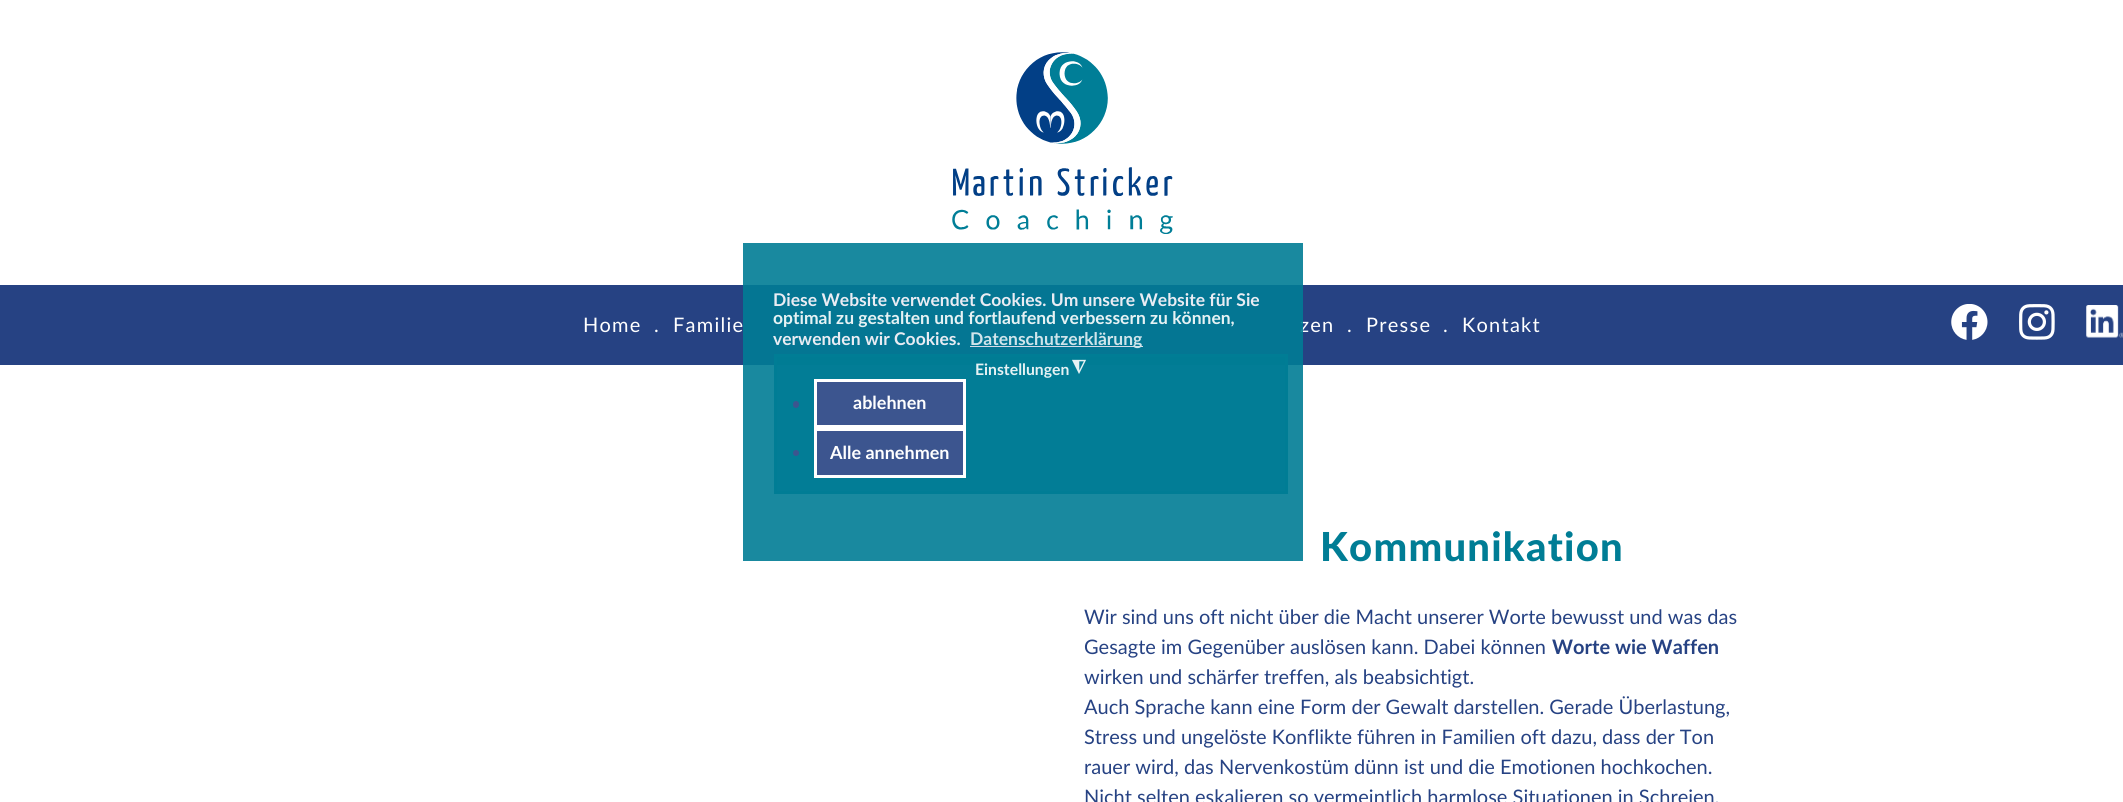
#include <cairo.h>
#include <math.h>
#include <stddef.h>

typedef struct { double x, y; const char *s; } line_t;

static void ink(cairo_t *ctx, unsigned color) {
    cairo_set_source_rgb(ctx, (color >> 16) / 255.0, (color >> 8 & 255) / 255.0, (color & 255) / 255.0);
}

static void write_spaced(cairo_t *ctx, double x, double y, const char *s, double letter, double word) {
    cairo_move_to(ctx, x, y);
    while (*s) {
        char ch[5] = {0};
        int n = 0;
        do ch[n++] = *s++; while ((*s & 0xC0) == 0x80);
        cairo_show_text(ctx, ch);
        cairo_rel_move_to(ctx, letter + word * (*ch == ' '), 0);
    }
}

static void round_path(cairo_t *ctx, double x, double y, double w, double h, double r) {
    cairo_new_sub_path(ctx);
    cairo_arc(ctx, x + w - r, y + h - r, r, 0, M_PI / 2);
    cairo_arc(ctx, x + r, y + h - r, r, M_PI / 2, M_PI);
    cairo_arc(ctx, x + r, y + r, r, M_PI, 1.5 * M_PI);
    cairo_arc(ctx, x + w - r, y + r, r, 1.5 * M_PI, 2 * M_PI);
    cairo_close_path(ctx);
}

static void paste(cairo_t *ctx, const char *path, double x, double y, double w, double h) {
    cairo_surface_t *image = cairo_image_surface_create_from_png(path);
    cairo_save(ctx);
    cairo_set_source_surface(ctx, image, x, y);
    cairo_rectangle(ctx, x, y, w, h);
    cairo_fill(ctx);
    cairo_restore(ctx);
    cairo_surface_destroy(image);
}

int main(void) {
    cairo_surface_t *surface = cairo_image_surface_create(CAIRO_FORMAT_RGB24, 2123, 802);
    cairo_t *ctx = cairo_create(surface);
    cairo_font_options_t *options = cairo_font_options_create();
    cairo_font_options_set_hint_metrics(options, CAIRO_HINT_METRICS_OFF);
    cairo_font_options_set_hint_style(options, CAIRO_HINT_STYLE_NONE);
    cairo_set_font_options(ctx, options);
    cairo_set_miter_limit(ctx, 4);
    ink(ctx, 0xFFFFFF);
    cairo_paint(ctx);
    ink(ctx, 0x264283);
    cairo_rectangle(ctx, 0, 285, 2123, 80);
    cairo_fill(ctx);
    cairo_select_font_face(ctx, "Lato", CAIRO_FONT_SLANT_NORMAL, CAIRO_FONT_WEIGHT_NORMAL);
    cairo_set_font_size(ctx, 20);
    ink(ctx, 0xFFFFFF);
    write_spaced(ctx, 1300, 332, "zen", 1.25, 0);
    cairo_set_source_rgba(ctx, 0, 0.49, 0.584, 0.9);
    cairo_rectangle(ctx, 743, 243, 560, 318);
    cairo_fill(ctx);
    cairo_select_font_face(ctx, "Lato", CAIRO_FONT_SLANT_NORMAL, CAIRO_FONT_WEIGHT_BOLD);
    cairo_set_font_size(ctx, 17.5);
    ink(ctx, 0xE9ECF3);
    cairo_move_to(ctx, 773, 306);
    cairo_show_text(ctx, "Diese Website verwendet Cookies. Um unsere Website für Sie");
    ink(ctx, 0xE6F2F4);
    cairo_move_to(ctx, 773, 324);
    cairo_show_text(ctx, "optimal zu gestalten und fortlaufend verbessern zu können,");
    ink(ctx, 0xE9ECF3);
    cairo_move_to(ctx, 773, 345);
    cairo_show_text(ctx, "verwenden wir Cookies.");
    ink(ctx, 0xD6DBE7);
    cairo_rectangle(ctx, 970, 346, 173, 1);
    cairo_fill(ctx);
    ink(ctx, 0xD0E5EB);
    cairo_move_to(ctx, 970, 345);
    cairo_show_text(ctx, "Datenschutzerklärung");
    cairo_set_source_rgba(ctx, 0, 0.49, 0.584, 0.9);
    cairo_rectangle(ctx, 775.5, 355.5, 511, 137);
    cairo_fill_preserve(ctx);
    ink(ctx, 0x007D95);
    cairo_set_line_width(ctx, 3);
    cairo_stroke(ctx);
    cairo_set_font_size(ctx, 15.75);
    ink(ctx, 0xE6F2F4);
    cairo_move_to(ctx, 975, 375);
    cairo_show_text(ctx, "Einstellungen");
    cairo_select_font_face(ctx, "DejaVu Sans", CAIRO_FONT_SLANT_NORMAL, CAIRO_FONT_WEIGHT_BOLD);
    cairo_set_font_size(ctx, 17.5);
    cairo_save(ctx);
    cairo_translate(ctx, 1086, 362);
    cairo_rotate(ctx, 180 * M_PI / 180);
    cairo_move_to(ctx, 0, 0);
    cairo_show_text(ctx, "◮");
    cairo_restore(ctx);
    ink(ctx, 0x3C558F);
    round_path(ctx, 793, 401, 6, 7, 3);
    cairo_fill(ctx);
    cairo_rectangle(ctx, 815.5, 380.5, 149, 46);
    cairo_fill_preserve(ctx);
    ink(ctx, 0xFFFFFF);
    cairo_stroke(ctx);
    cairo_select_font_face(ctx, "Lato", CAIRO_FONT_SLANT_NORMAL, CAIRO_FONT_WEIGHT_BOLD);
    cairo_set_font_size(ctx, 18);
    cairo_move_to(ctx, 853, 409);
    cairo_show_text(ctx, "ablehnen");
    ink(ctx, 0x3C558F);
    cairo_new_path(ctx);
    cairo_arc(ctx, 796, 453, 3, 0, 2 * M_PI);
    cairo_fill(ctx);
    cairo_rectangle(ctx, 815.5, 429.5, 149, 47);
    cairo_fill_preserve(ctx);
    ink(ctx, 0xFFFFFF);
    cairo_stroke(ctx);
    cairo_move_to(ctx, 830, 459);
    cairo_show_text(ctx, "Alle annehmen");
    paste(ctx, "media/1.png", 952, 52, 221, 182);
    cairo_select_font_face(ctx, "Lato", CAIRO_FONT_SLANT_NORMAL, CAIRO_FONT_WEIGHT_NORMAL);
    cairo_set_font_size(ctx, 20);
    {
        static const line_t items[] = {
            {583, 332, "Home"},
            {654, 332, "."},
            {673, 332, "Familie"},
            {1347, 332, "."},
            {1366, 332, "Presse"},
            {1443, 332, "."},
            {1462, 332, "Kontakt"},
        };
        for (size_t i = 0; i < sizeof items / sizeof *items; i++) {
            write_spaced(ctx, items[i].x, items[i].y, items[i].s, 1.25, 0);
        }
    }
    paste(ctx, "media/2.png", 1951, 304, 37, 36);
    paste(ctx, "media/3.png", 2019, 304, 36, 36);
    paste(ctx, "media/4.png", 2086, 305, 37, 33);
    cairo_select_font_face(ctx, "Lato Black", CAIRO_FONT_SLANT_NORMAL, CAIRO_FONT_WEIGHT_NORMAL);
    cairo_set_font_size(ctx, 40);
    ink(ctx, 0x007D95);
    write_spaced(ctx, 1320, 561, "Kommunikation", 1.25, 0);
    cairo_select_font_face(ctx, "Lato", CAIRO_FONT_SLANT_NORMAL, CAIRO_FONT_WEIGHT_NORMAL);
    cairo_set_font_size(ctx, 20);
    ink(ctx, 0x264283);
    cairo_move_to(ctx, 1084, 624);
    cairo_show_text(ctx, "Wir sind uns oft nicht über die Macht unserer Worte bewusst und was das");
    cairo_move_to(ctx, 1084, 654);
    cairo_show_text(ctx, "Gesagte im Gegenüber auslösen kann. Dabei können");
    cairo_select_font_face(ctx, "Lato", CAIRO_FONT_SLANT_NORMAL, CAIRO_FONT_WEIGHT_BOLD);
    cairo_move_to(ctx, 1552, 654);
    cairo_show_text(ctx, "Worte wie Waffen");
    cairo_select_font_face(ctx, "Lato", CAIRO_FONT_SLANT_NORMAL, CAIRO_FONT_WEIGHT_NORMAL);
    {
        static const line_t items[] = {
            {1084, 684, "wirken und schärfer treffen, als beabsichtigt."},
            {1084, 714, "Auch Sprache kann eine Form der Gewalt darstellen. Gerade Überlastung,"},
            {1084, 744, "Stress und ungelöste Konflikte führen in Familien oft dazu, dass der Ton"},
            {1084, 774, "rauer wird, das Nervenkostüm dünn ist und die Emotionen hochkochen."},
            {1084, 804, "Nicht selten eskalieren so vermeintlich harmlose Situationen in Schreien,"},
        };
        for (size_t i = 0; i < sizeof items / sizeof *items; i++) {
            cairo_move_to(ctx, items[i].x, items[i].y);
            cairo_show_text(ctx, items[i].s);
        }
    }
    cairo_surface_write_to_png(surface, "image.png");
    cairo_font_options_destroy(options);
    cairo_destroy(ctx);
    cairo_surface_destroy(surface);
    return 0;
}
